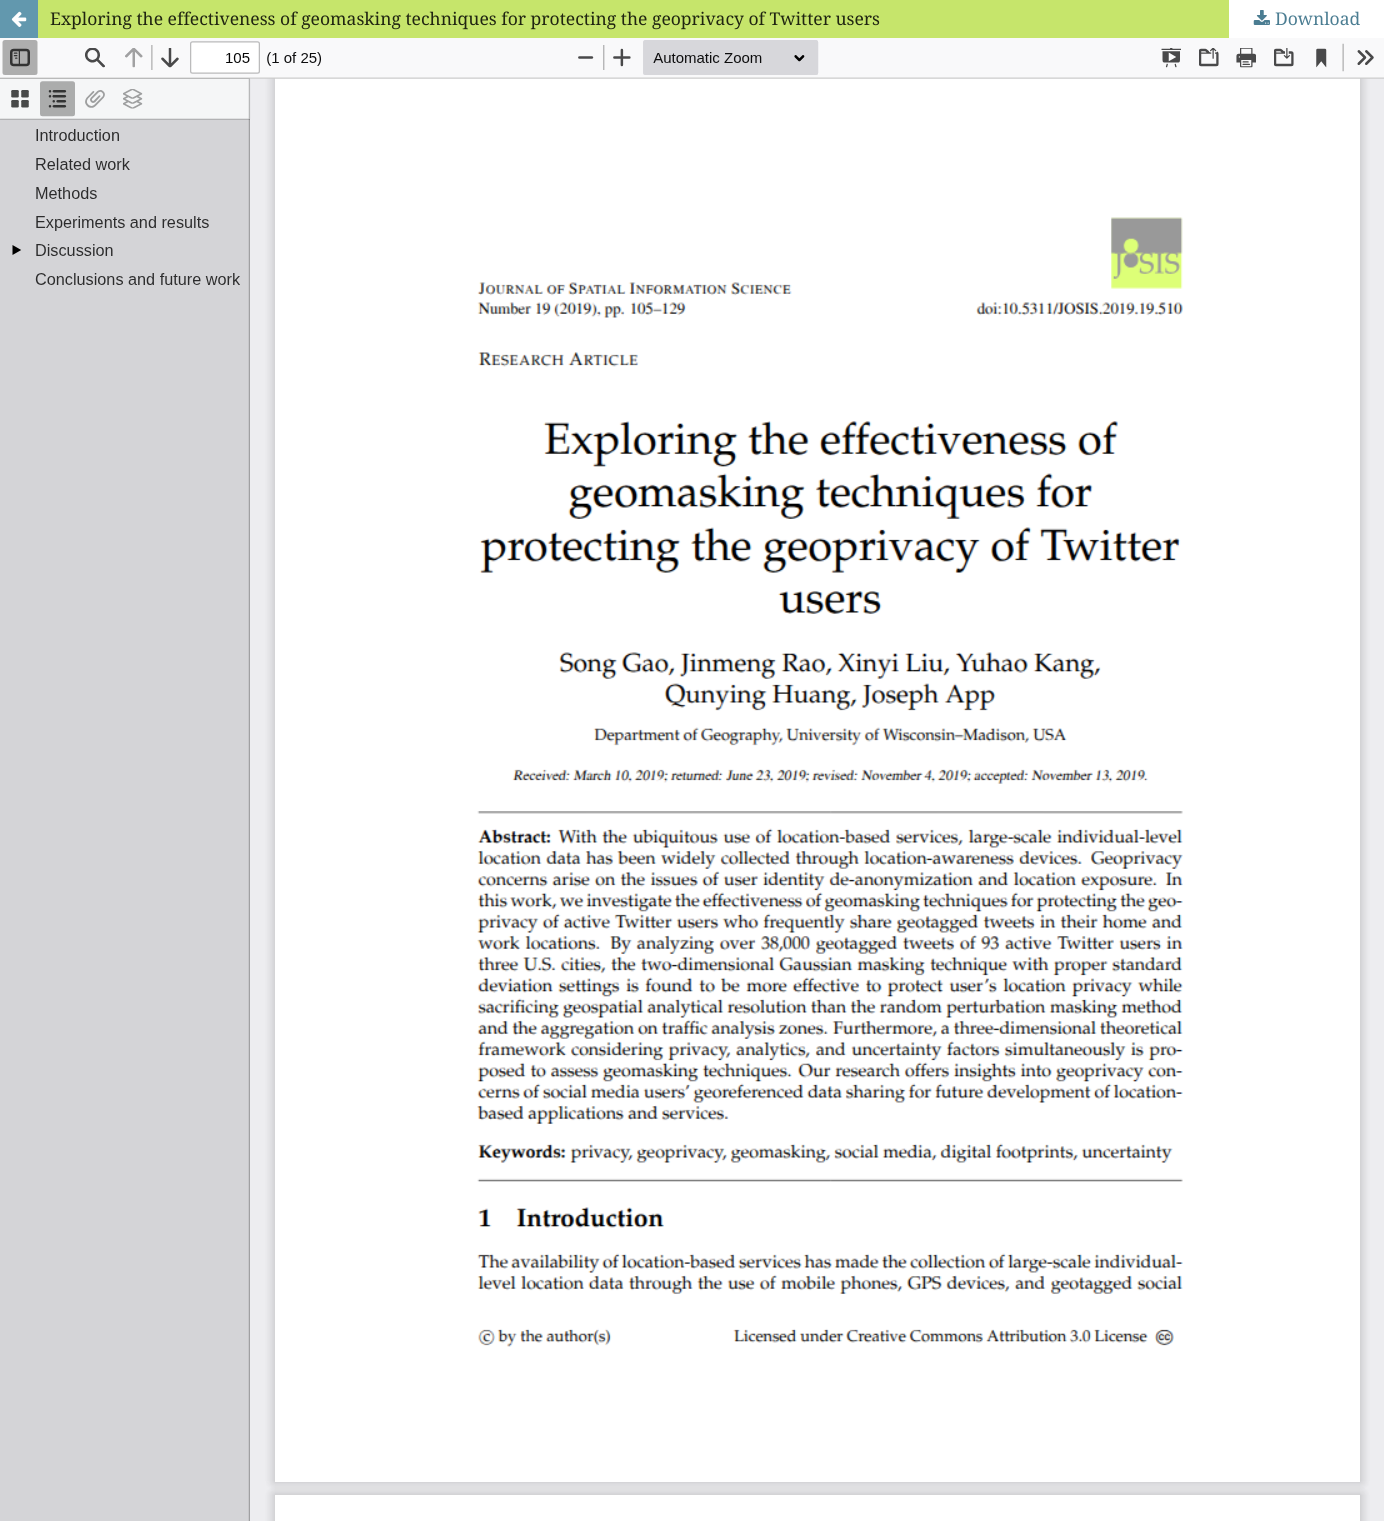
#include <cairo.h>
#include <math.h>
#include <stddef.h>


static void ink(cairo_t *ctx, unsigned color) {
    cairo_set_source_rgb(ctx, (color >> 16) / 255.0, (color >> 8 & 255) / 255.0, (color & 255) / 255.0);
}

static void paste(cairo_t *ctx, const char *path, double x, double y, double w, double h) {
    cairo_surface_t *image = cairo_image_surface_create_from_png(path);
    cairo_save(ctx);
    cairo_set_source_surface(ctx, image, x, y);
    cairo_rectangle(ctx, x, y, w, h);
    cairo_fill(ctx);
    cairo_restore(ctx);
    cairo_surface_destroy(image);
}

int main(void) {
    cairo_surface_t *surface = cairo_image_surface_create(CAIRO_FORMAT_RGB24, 1384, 1521);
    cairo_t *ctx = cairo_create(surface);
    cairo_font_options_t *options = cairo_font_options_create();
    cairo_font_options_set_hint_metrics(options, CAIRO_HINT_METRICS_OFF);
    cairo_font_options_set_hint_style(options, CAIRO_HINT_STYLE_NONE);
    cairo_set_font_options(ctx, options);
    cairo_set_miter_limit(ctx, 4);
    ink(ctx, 0xFFFFFF);
    cairo_paint(ctx);
    ink(ctx, 0xC6E56B);
    cairo_rectangle(ctx, 38, 0, 1191, 38);
    cairo_fill(ctx);
    ink(ctx, 0x6298AE);
    cairo_rectangle(ctx, 0, 0, 38, 38);
    cairo_fill(ctx);
    paste(ctx, "media/1.png", 11, 11, 16, 16);
    cairo_select_font_face(ctx, "Noto Serif", CAIRO_FONT_SLANT_NORMAL, CAIRO_FONT_WEIGHT_NORMAL);
    cairo_set_font_size(ctx, 17.5);
    ink(ctx, 0x202511);
    cairo_move_to(ctx, 50, 25);
    cairo_show_text(ctx, "Exploring the effectiveness of geomasking techniques for protecting the geoprivacy of Twitter users");
    paste(ctx, "media/2.png", 1253, 10, 17, 15);
    ink(ctx, 0x4B7D92);
    cairo_move_to(ctx, 1275, 25);
    cairo_show_text(ctx, "Download");
    paste(ctx, "media/3.png", 0, 38, 1384, 1483);
    cairo_surface_write_to_png(surface, "image.png");
    cairo_font_options_destroy(options);
    cairo_destroy(ctx);
    cairo_surface_destroy(surface);
    return 0;
}
